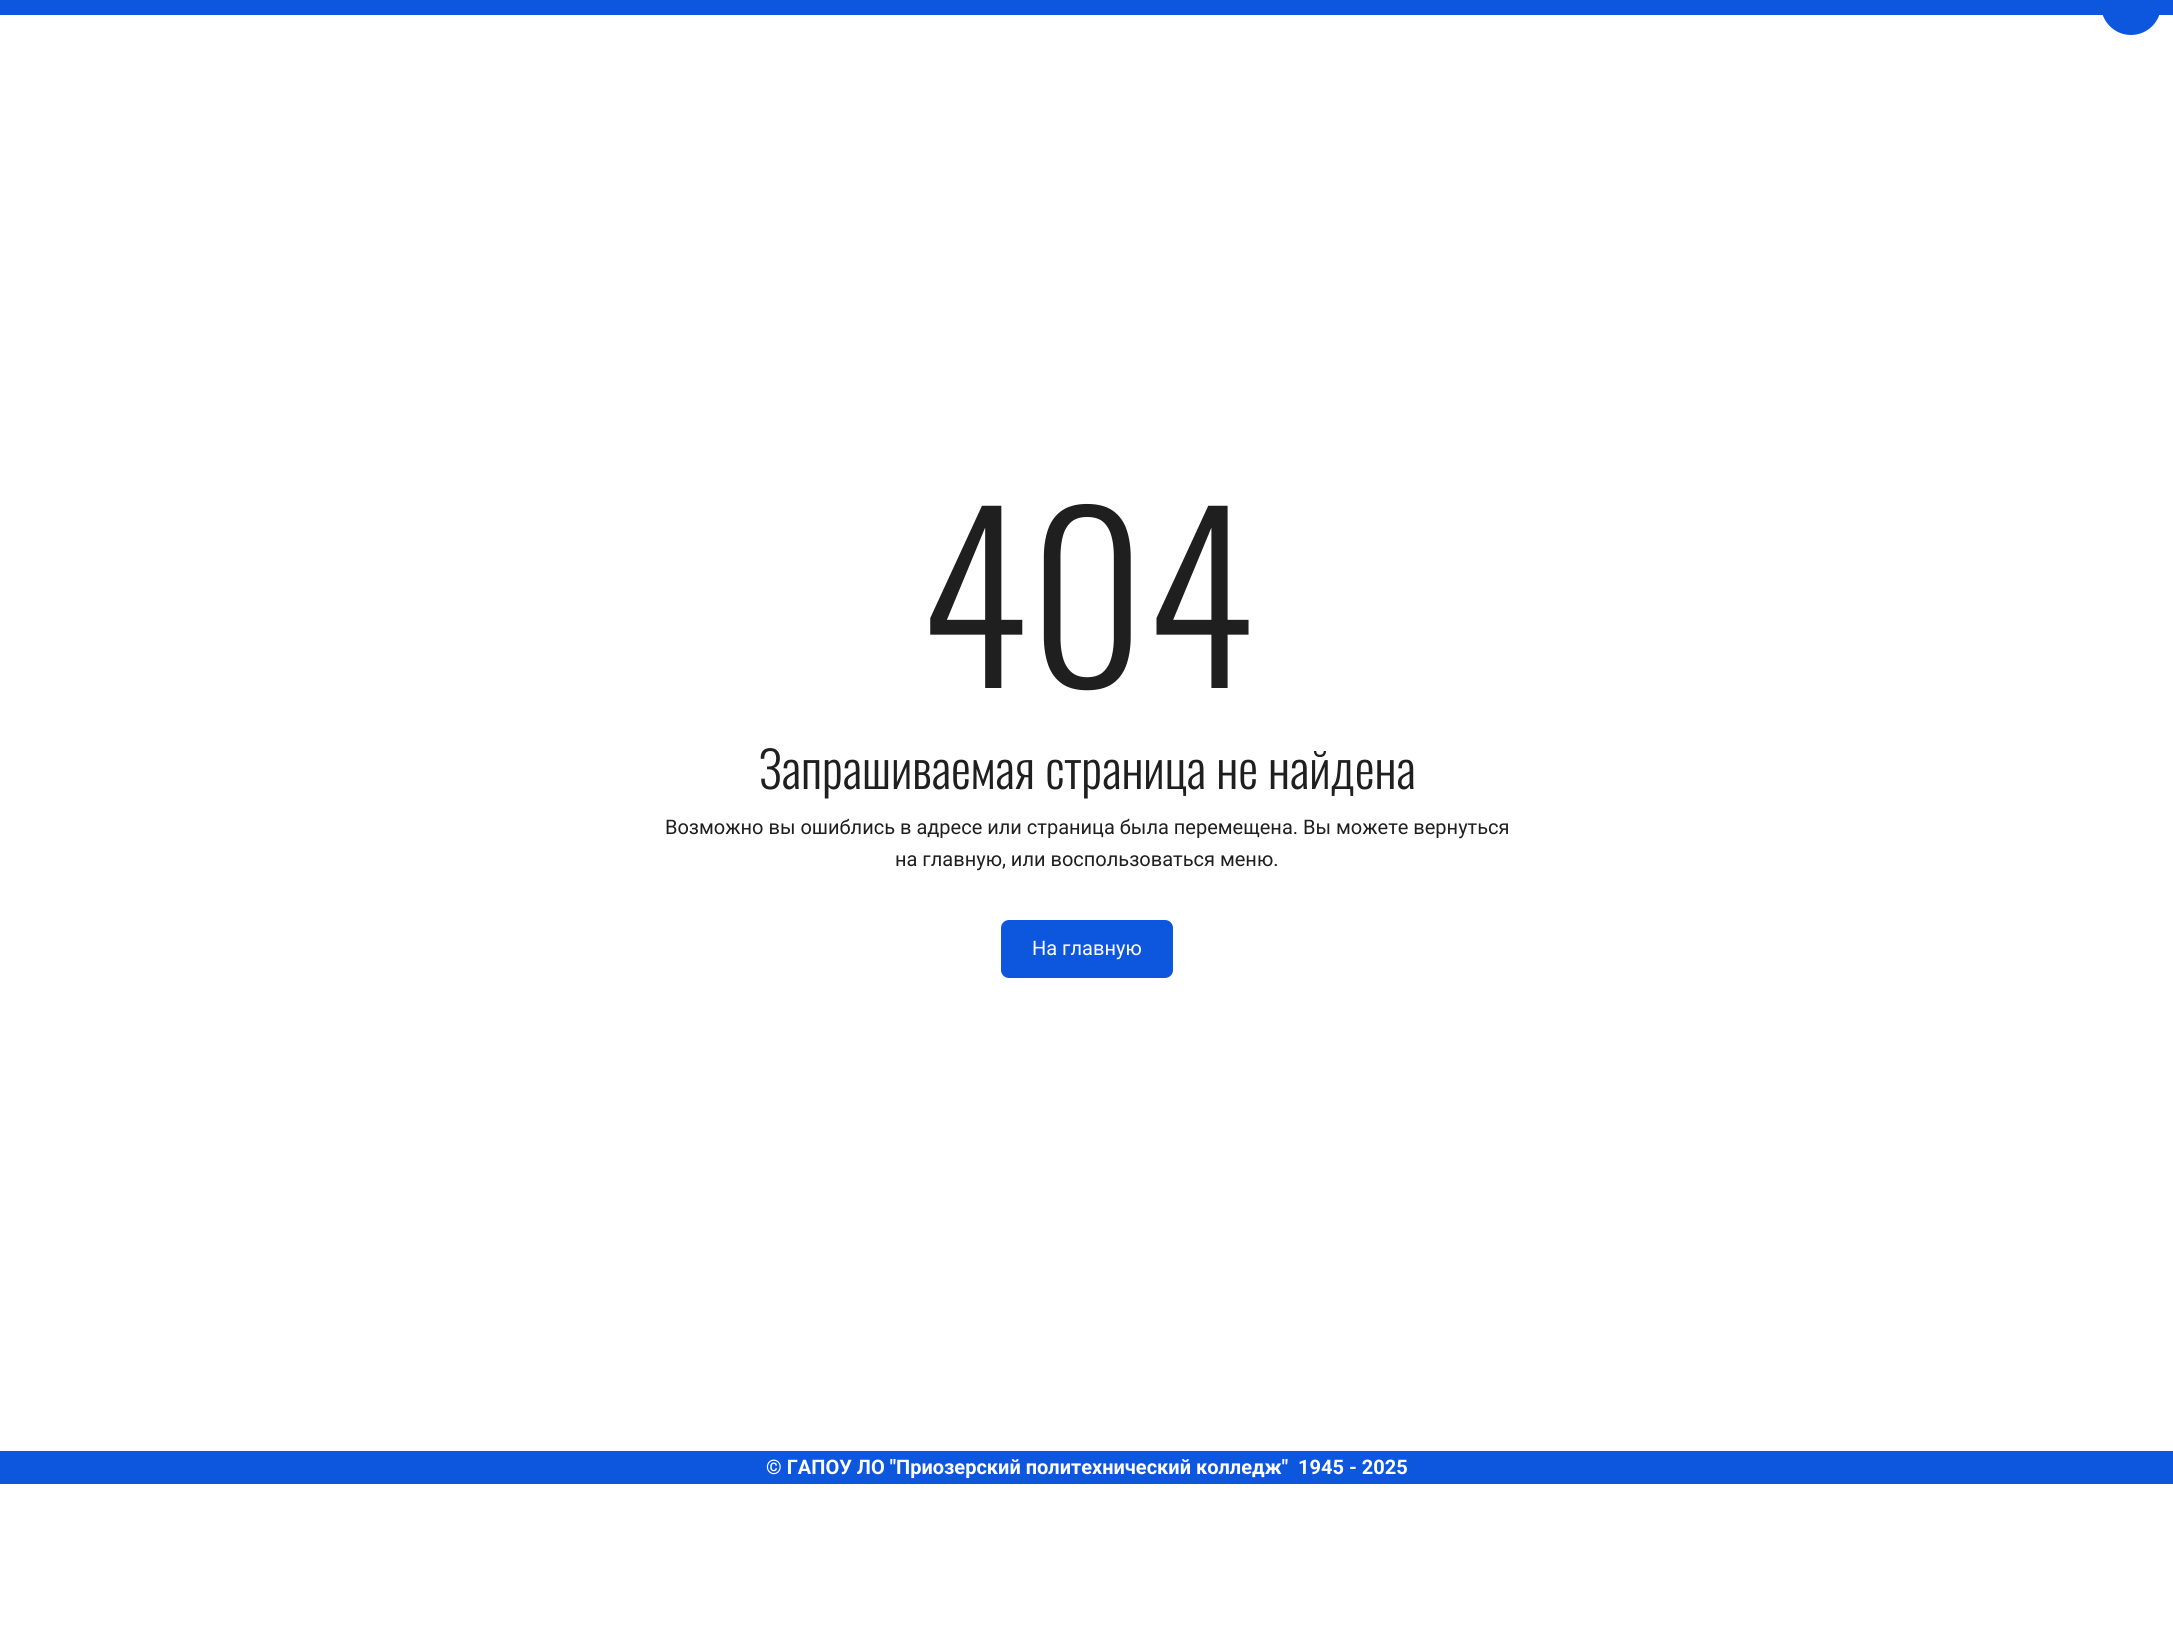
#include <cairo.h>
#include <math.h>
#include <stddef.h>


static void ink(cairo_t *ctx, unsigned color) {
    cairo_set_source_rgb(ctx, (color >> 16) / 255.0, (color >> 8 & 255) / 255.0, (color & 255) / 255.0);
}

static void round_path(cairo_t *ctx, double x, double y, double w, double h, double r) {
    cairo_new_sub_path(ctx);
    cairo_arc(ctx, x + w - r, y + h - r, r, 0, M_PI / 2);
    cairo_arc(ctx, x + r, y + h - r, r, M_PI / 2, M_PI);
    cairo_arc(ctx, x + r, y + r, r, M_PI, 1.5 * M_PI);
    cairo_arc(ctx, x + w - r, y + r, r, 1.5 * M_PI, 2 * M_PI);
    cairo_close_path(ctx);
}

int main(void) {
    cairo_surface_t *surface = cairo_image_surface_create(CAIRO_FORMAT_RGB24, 2173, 1634);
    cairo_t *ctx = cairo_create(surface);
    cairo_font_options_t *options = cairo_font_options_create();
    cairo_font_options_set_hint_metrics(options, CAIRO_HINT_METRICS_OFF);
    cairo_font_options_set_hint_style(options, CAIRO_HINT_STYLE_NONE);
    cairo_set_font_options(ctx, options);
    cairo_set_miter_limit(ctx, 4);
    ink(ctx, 0xFFFFFF);
    cairo_paint(ctx);
    ink(ctx, 0x0D57DF);
    cairo_rectangle(ctx, 0, 0, 2173, 15);
    cairo_fill(ctx);
    cairo_new_path(ctx);
    cairo_move_to(ctx, 2101, -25);
    cairo_line_to(ctx, 2161, -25);
    cairo_line_to(ctx, 2161, 5);
    cairo_curve_to(ctx, 2161, 21.5, 2147.5, 35, 2131, 35);
    cairo_curve_to(ctx, 2114.5, 35, 2101, 21.5, 2101, 5);
    cairo_close_path(ctx);
    cairo_fill(ctx);
    cairo_select_font_face(ctx, "Oswald Light", CAIRO_FONT_SLANT_NORMAL, CAIRO_FONT_WEIGHT_NORMAL);
    cairo_set_font_size(ctx, 225);
    ink(ctx, 0x1F1F1F);
    cairo_move_to(ctx, 919, 688);
    cairo_show_text(ctx, "404");
    cairo_set_font_size(ctx, 50);
    cairo_move_to(ctx, 759, 789);
    cairo_show_text(ctx, "Запрашиваемая страница не найдена");
    cairo_select_font_face(ctx, "Roboto", CAIRO_FONT_SLANT_NORMAL, CAIRO_FONT_WEIGHT_NORMAL);
    cairo_set_font_size(ctx, 20);
    cairo_move_to(ctx, 665, 834);
    cairo_show_text(ctx, "Возможно вы ошиблись в адресе или страница была перемещена. Вы можете вернуться");
    cairo_move_to(ctx, 895, 866);
    cairo_show_text(ctx, "на главную, или воспользоваться меню.");
    ink(ctx, 0x0D57DF);
    round_path(ctx, 1001, 920, 172, 58, 8);
    cairo_fill(ctx);
    ink(ctx, 0xFFFFFF);
    cairo_move_to(ctx, 1032, 955);
    cairo_show_text(ctx, "На главную");
    ink(ctx, 0x0D57DF);
    cairo_rectangle(ctx, 0, 1451, 2173, 33);
    cairo_fill(ctx);
    cairo_select_font_face(ctx, "Roboto", CAIRO_FONT_SLANT_NORMAL, CAIRO_FONT_WEIGHT_BOLD);
    ink(ctx, 0xFFFFFF);
    cairo_move_to(ctx, 766, 1474);
    cairo_show_text(ctx, "© ГАПОУ ЛО \"Приозерский политехнический колледж\"  1945 - 2025");
    cairo_surface_write_to_png(surface, "image.png");
    cairo_font_options_destroy(options);
    cairo_destroy(ctx);
    cairo_surface_destroy(surface);
    return 0;
}
